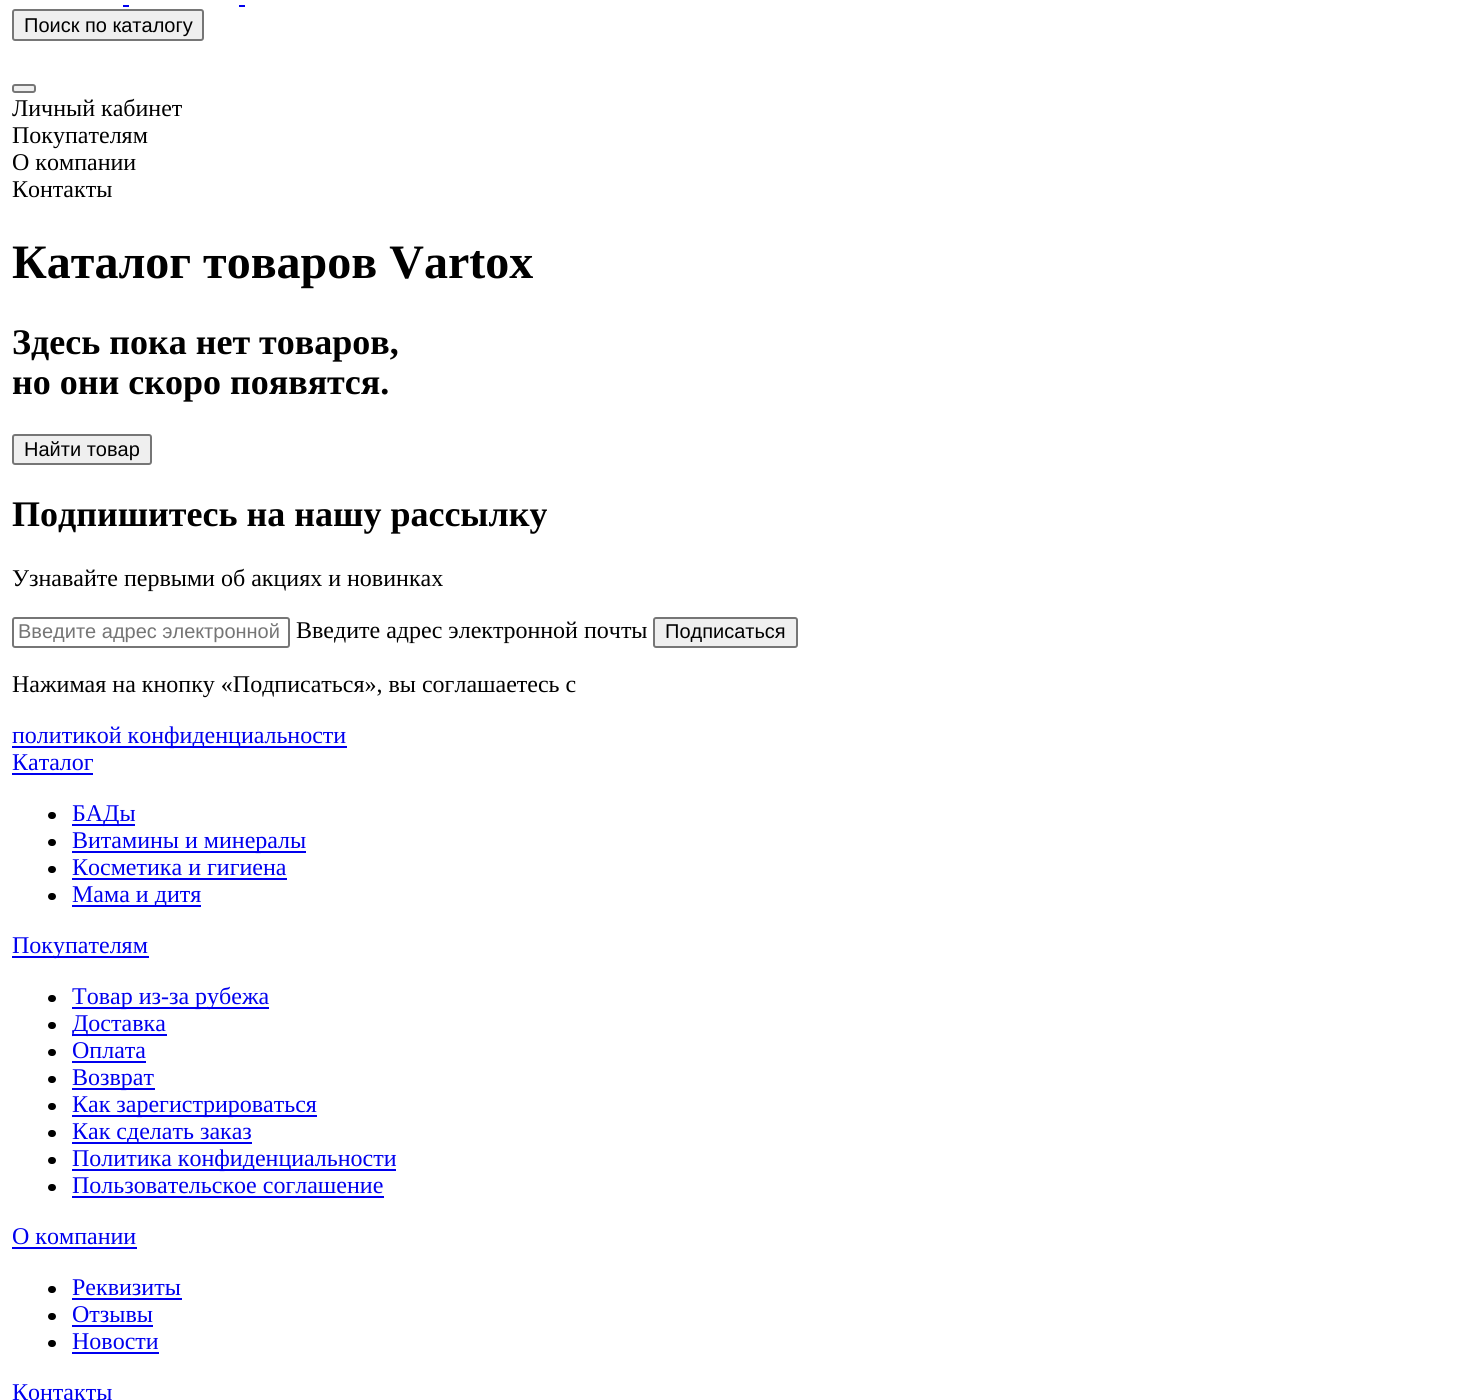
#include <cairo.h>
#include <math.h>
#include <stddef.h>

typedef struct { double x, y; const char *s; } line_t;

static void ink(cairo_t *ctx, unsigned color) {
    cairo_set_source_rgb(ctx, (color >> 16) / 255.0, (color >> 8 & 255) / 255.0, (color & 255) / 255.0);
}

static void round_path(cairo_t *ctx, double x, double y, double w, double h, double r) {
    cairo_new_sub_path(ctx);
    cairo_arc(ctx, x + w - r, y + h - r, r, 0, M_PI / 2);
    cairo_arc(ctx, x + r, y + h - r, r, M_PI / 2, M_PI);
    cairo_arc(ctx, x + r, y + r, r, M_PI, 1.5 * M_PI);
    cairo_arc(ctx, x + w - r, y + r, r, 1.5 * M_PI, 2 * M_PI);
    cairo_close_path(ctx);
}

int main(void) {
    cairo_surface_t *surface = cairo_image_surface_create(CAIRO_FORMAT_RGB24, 1467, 1400);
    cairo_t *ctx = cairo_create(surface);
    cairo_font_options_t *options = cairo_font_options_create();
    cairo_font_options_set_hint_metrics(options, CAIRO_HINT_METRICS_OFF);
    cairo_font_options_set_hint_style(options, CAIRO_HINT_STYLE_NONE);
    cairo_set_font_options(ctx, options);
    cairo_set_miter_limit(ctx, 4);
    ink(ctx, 0xFFFFFF);
    cairo_paint(ctx);
    ink(ctx, 0x0000EE);
    cairo_rectangle(ctx, 123, 5, 6, 2);
    cairo_fill(ctx);
    cairo_rectangle(ctx, 239, 5, 6, 2);
    cairo_fill(ctx);
    ink(ctx, 0xEFEFEF);
    round_path(ctx, 13, 10, 190, 30, 2);
    cairo_fill_preserve(ctx);
    ink(ctx, 0x767676);
    cairo_stroke(ctx);
    cairo_select_font_face(ctx, "Liberation Sans", CAIRO_FONT_SLANT_NORMAL, CAIRO_FONT_WEIGHT_NORMAL);
    cairo_set_font_size(ctx, 20);
    ink(ctx, 0x000000);
    cairo_move_to(ctx, 24, 32);
    cairo_show_text(ctx, "Поиск по каталогу");
    ink(ctx, 0xEFEFEF);
    round_path(ctx, 13, 85, 22, 7, 2);
    cairo_fill_preserve(ctx);
    ink(ctx, 0x767676);
    cairo_stroke(ctx);
    cairo_select_font_face(ctx, "Liberation Serif", CAIRO_FONT_SLANT_NORMAL, CAIRO_FONT_WEIGHT_NORMAL);
    cairo_set_font_size(ctx, 24);
    ink(ctx, 0x000000);
    {
        static const line_t items[] = {
            {12, 116, "Личный кабинет"},
            {12, 143, "Покупателям"},
            {12, 170, "О компании"},
            {12, 197, "Контакты"},
        };
        for (size_t i = 0; i < sizeof items / sizeof *items; i++) {
            cairo_move_to(ctx, items[i].x, items[i].y);
            cairo_show_text(ctx, items[i].s);
        }
    }
    cairo_select_font_face(ctx, "Liberation Serif", CAIRO_FONT_SLANT_NORMAL, CAIRO_FONT_WEIGHT_BOLD);
    cairo_set_font_size(ctx, 48);
    cairo_move_to(ctx, 12, 278);
    cairo_show_text(ctx, "Каталог товаров Vartox");
    cairo_set_font_size(ctx, 36);
    cairo_move_to(ctx, 12, 354);
    cairo_show_text(ctx, "Здесь пока нет товаров,");
    cairo_move_to(ctx, 12, 394);
    cairo_show_text(ctx, "но они скоро появятся.");
    ink(ctx, 0xEFEFEF);
    round_path(ctx, 13, 435, 138, 29, 2);
    cairo_fill_preserve(ctx);
    ink(ctx, 0x767676);
    cairo_stroke(ctx);
    cairo_select_font_face(ctx, "Liberation Sans", CAIRO_FONT_SLANT_NORMAL, CAIRO_FONT_WEIGHT_NORMAL);
    cairo_set_font_size(ctx, 20);
    ink(ctx, 0x000000);
    cairo_move_to(ctx, 24, 456);
    cairo_show_text(ctx, "Найти товар");
    cairo_select_font_face(ctx, "Liberation Serif", CAIRO_FONT_SLANT_NORMAL, CAIRO_FONT_WEIGHT_BOLD);
    cairo_set_font_size(ctx, 36);
    cairo_move_to(ctx, 12, 526);
    cairo_show_text(ctx, "Подпишитесь на нашу рассылку");
    cairo_select_font_face(ctx, "Liberation Serif", CAIRO_FONT_SLANT_NORMAL, CAIRO_FONT_WEIGHT_NORMAL);
    cairo_set_font_size(ctx, 24);
    cairo_move_to(ctx, 12, 586);
    cairo_show_text(ctx, "Узнавайте первыми об акциях и новинках");
    round_path(ctx, 13, 618, 276, 29, 2);
    ink(ctx, 0x767676);
    cairo_stroke(ctx);
    cairo_select_font_face(ctx, "Liberation Sans", CAIRO_FONT_SLANT_NORMAL, CAIRO_FONT_WEIGHT_NORMAL);
    cairo_set_font_size(ctx, 20);
    ink(ctx, 0x757575);
    cairo_move_to(ctx, 18, 638);
    cairo_show_text(ctx, "Введите адрес электронной");
    cairo_select_font_face(ctx, "Liberation Serif", CAIRO_FONT_SLANT_NORMAL, CAIRO_FONT_WEIGHT_NORMAL);
    cairo_set_font_size(ctx, 24);
    ink(ctx, 0x000000);
    cairo_move_to(ctx, 296, 638);
    cairo_show_text(ctx, "Введите адрес электронной почты");
    ink(ctx, 0xEFEFEF);
    round_path(ctx, 654, 618, 143, 29, 2);
    cairo_fill_preserve(ctx);
    ink(ctx, 0x767676);
    cairo_stroke(ctx);
    cairo_select_font_face(ctx, "Liberation Sans", CAIRO_FONT_SLANT_NORMAL, CAIRO_FONT_WEIGHT_NORMAL);
    cairo_set_font_size(ctx, 20);
    ink(ctx, 0x000000);
    cairo_move_to(ctx, 665, 638);
    cairo_show_text(ctx, "Подписаться");
    cairo_select_font_face(ctx, "Liberation Serif", CAIRO_FONT_SLANT_NORMAL, CAIRO_FONT_WEIGHT_NORMAL);
    cairo_set_font_size(ctx, 24);
    cairo_move_to(ctx, 12, 692);
    cairo_show_text(ctx, "Нажимая на кнопку «Подписаться», вы соглашаетесь с");
    ink(ctx, 0x0000EE);
    cairo_rectangle(ctx, 12, 746, 335, 2);
    cairo_fill(ctx);
    cairo_move_to(ctx, 12, 743);
    cairo_show_text(ctx, "политикой конфиденциальности");
    cairo_move_to(ctx, 12, 770);
    cairo_show_text(ctx, "Каталог");
    cairo_rectangle(ctx, 12, 773, 81, 2);
    cairo_fill(ctx);
    ink(ctx, 0x000000);
    round_path(ctx, 48, 812, 8, 7, 3.5);
    cairo_fill(ctx);
    ink(ctx, 0x0000EE);
    cairo_rectangle(ctx, 72, 824, 63, 2);
    cairo_fill(ctx);
    cairo_move_to(ctx, 72, 821);
    cairo_show_text(ctx, "БАДы");
    ink(ctx, 0x000000);
    round_path(ctx, 48, 839, 8, 7, 3.5);
    cairo_fill(ctx);
    ink(ctx, 0x0000EE);
    cairo_rectangle(ctx, 72, 851, 234, 2);
    cairo_fill(ctx);
    cairo_move_to(ctx, 72, 848);
    cairo_show_text(ctx, "Витамины и минералы");
    ink(ctx, 0x000000);
    round_path(ctx, 48, 866, 8, 7, 3.5);
    cairo_fill(ctx);
    ink(ctx, 0x0000EE);
    cairo_move_to(ctx, 72, 875);
    cairo_show_text(ctx, "Косметика и гигиена");
    cairo_rectangle(ctx, 72, 878, 215, 2);
    cairo_fill(ctx);
    ink(ctx, 0x000000);
    round_path(ctx, 48, 893, 8, 7, 3.5);
    cairo_fill(ctx);
    ink(ctx, 0x0000EE);
    cairo_rectangle(ctx, 72, 905, 129, 2);
    cairo_fill(ctx);
    cairo_move_to(ctx, 72, 902);
    cairo_show_text(ctx, "Мама и дитя");
    cairo_rectangle(ctx, 12, 956, 137, 2);
    cairo_fill(ctx);
    cairo_move_to(ctx, 12, 953);
    cairo_show_text(ctx, "Покупателям");
    ink(ctx, 0x000000);
    round_path(ctx, 48, 995, 8, 7, 3.5);
    cairo_fill(ctx);
    ink(ctx, 0x0000EE);
    cairo_rectangle(ctx, 72, 1007, 197, 2);
    cairo_fill(ctx);
    cairo_move_to(ctx, 72, 1004);
    cairo_show_text(ctx, "Товар из-за рубежа");
    ink(ctx, 0x000000);
    round_path(ctx, 48, 1022, 8, 7, 3.5);
    cairo_fill(ctx);
    ink(ctx, 0x0000EE);
    cairo_rectangle(ctx, 72, 1034, 95, 2);
    cairo_fill(ctx);
    cairo_move_to(ctx, 72, 1031);
    cairo_show_text(ctx, "Доставка");
    ink(ctx, 0x000000);
    round_path(ctx, 48, 1049, 8, 7, 3.5);
    cairo_fill(ctx);
    ink(ctx, 0x0000EE);
    cairo_move_to(ctx, 72, 1058);
    cairo_show_text(ctx, "Оплата");
    cairo_rectangle(ctx, 72, 1061, 74, 2);
    cairo_fill(ctx);
    ink(ctx, 0x000000);
    round_path(ctx, 48, 1076, 8, 7, 3.5);
    cairo_fill(ctx);
    ink(ctx, 0x0000EE);
    cairo_rectangle(ctx, 72, 1088, 83, 2);
    cairo_fill(ctx);
    cairo_move_to(ctx, 72, 1085);
    cairo_show_text(ctx, "Возврат");
    ink(ctx, 0x000000);
    round_path(ctx, 48, 1103, 8, 7, 3.5);
    cairo_fill(ctx);
    ink(ctx, 0x0000EE);
    cairo_rectangle(ctx, 72, 1115, 245, 2);
    cairo_fill(ctx);
    cairo_move_to(ctx, 72, 1112);
    cairo_show_text(ctx, "Как зарегистрироваться");
    ink(ctx, 0x000000);
    round_path(ctx, 48, 1130, 8, 7, 3.5);
    cairo_fill(ctx);
    ink(ctx, 0x0000EE);
    cairo_rectangle(ctx, 72, 1142, 180, 2);
    cairo_fill(ctx);
    cairo_move_to(ctx, 72, 1139);
    cairo_show_text(ctx, "Как сделать заказ");
    ink(ctx, 0x000000);
    round_path(ctx, 48, 1157, 8, 7, 3.5);
    cairo_fill(ctx);
    ink(ctx, 0x0000EE);
    cairo_rectangle(ctx, 72, 1169, 324, 2);
    cairo_fill(ctx);
    cairo_move_to(ctx, 72, 1166);
    cairo_show_text(ctx, "Политика конфиденциальности");
    ink(ctx, 0x000000);
    round_path(ctx, 48, 1184, 8, 7, 3.5);
    cairo_fill(ctx);
    ink(ctx, 0x0000EE);
    cairo_move_to(ctx, 72, 1193);
    cairo_show_text(ctx, "Пользовательское соглашение");
    cairo_rectangle(ctx, 72, 1196, 312, 2);
    cairo_fill(ctx);
    cairo_move_to(ctx, 12, 1244);
    cairo_show_text(ctx, "О компании");
    cairo_rectangle(ctx, 12, 1247, 125, 2);
    cairo_fill(ctx);
    ink(ctx, 0x000000);
    round_path(ctx, 48, 1286, 8, 7, 3.5);
    cairo_fill(ctx);
    ink(ctx, 0x0000EE);
    cairo_move_to(ctx, 72, 1295);
    cairo_show_text(ctx, "Реквизиты");
    cairo_rectangle(ctx, 72, 1298, 110, 2);
    cairo_fill(ctx);
    ink(ctx, 0x000000);
    round_path(ctx, 48, 1313, 8, 7, 3.5);
    cairo_fill(ctx);
    ink(ctx, 0x0000EE);
    cairo_move_to(ctx, 72, 1322);
    cairo_show_text(ctx, "Отзывы");
    cairo_rectangle(ctx, 72, 1325, 81, 2);
    cairo_fill(ctx);
    ink(ctx, 0x000000);
    round_path(ctx, 48, 1340, 8, 7, 3.5);
    cairo_fill(ctx);
    ink(ctx, 0x0000EE);
    cairo_move_to(ctx, 72, 1349);
    cairo_show_text(ctx, "Новости");
    cairo_rectangle(ctx, 72, 1352, 87, 2);
    cairo_fill(ctx);
    cairo_move_to(ctx, 12, 1400);
    cairo_show_text(ctx, "Контакты");
    cairo_surface_write_to_png(surface, "image.png");
    cairo_font_options_destroy(options);
    cairo_destroy(ctx);
    cairo_surface_destroy(surface);
    return 0;
}
